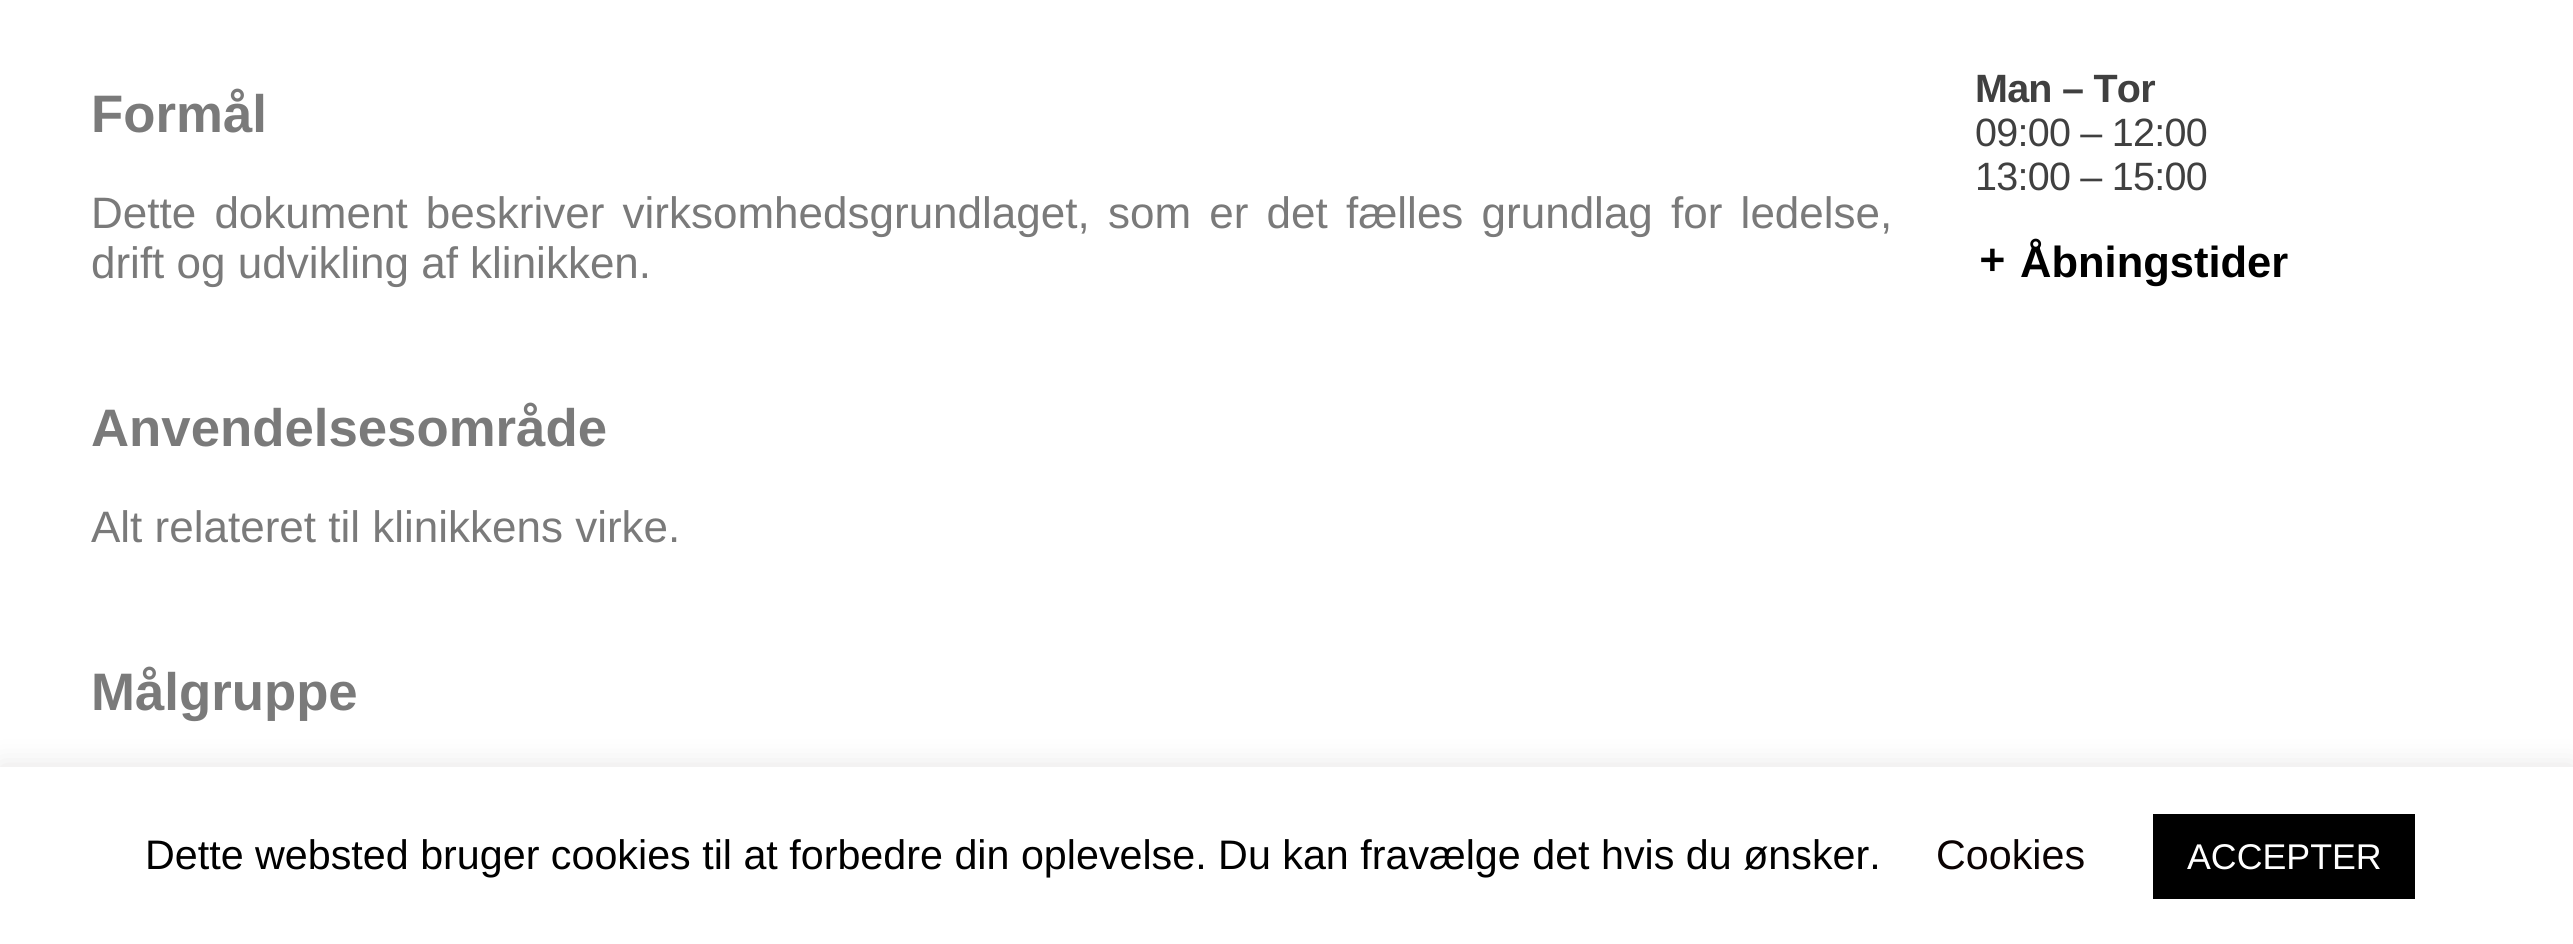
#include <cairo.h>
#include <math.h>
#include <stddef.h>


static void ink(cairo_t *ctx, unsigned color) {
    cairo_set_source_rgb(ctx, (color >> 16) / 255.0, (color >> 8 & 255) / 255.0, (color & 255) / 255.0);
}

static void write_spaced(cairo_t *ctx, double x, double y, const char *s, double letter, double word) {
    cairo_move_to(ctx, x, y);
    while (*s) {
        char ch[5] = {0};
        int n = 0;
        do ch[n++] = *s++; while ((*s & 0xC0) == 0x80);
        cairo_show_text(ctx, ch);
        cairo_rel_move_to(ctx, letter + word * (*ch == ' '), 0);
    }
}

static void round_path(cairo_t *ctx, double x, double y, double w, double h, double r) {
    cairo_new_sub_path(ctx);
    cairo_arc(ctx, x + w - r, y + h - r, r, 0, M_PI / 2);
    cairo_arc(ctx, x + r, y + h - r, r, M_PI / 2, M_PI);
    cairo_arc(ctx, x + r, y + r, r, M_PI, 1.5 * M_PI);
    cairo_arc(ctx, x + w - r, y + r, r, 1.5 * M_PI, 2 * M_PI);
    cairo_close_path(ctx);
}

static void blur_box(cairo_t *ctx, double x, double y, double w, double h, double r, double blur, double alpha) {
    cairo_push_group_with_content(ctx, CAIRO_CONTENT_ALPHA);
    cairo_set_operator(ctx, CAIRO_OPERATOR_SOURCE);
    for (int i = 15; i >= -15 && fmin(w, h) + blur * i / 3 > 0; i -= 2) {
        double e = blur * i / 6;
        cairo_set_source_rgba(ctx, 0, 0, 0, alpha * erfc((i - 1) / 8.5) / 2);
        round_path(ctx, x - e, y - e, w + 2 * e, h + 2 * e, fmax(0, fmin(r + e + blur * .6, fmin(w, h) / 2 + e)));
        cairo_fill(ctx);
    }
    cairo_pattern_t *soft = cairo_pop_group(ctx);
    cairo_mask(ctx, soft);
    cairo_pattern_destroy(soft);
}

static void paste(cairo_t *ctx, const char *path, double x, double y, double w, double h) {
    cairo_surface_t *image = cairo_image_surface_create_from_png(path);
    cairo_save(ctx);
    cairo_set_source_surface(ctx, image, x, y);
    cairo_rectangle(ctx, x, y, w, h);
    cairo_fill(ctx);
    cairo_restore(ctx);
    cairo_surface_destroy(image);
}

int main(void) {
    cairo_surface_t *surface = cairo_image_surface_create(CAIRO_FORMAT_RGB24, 2573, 944);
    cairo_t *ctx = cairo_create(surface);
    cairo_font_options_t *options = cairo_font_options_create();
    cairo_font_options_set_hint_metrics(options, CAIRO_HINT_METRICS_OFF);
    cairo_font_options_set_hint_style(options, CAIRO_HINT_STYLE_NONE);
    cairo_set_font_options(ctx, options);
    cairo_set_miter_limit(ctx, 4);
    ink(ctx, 0xFFFFFF);
    cairo_paint(ctx);
    cairo_select_font_face(ctx, "Liberation Sans", CAIRO_FONT_SLANT_NORMAL, CAIRO_FONT_WEIGHT_BOLD);
    cairo_set_font_size(ctx, 52.75);
    ink(ctx, 0x7A7A7A);
    cairo_move_to(ctx, 91, 132);
    cairo_show_text(ctx, "Formål");
    cairo_select_font_face(ctx, "Liberation Sans", CAIRO_FONT_SLANT_NORMAL, CAIRO_FONT_WEIGHT_NORMAL);
    cairo_set_font_size(ctx, 44);
    write_spaced(ctx, 91, 228, "Dette dokument beskriver virksomhedsgrundlaget, som er det fælles grundlag for ledelse,", 0, 6);
    cairo_move_to(ctx, 91, 278);
    cairo_show_text(ctx, "drift og udvikling af klinikken.");
    cairo_select_font_face(ctx, "Liberation Sans", CAIRO_FONT_SLANT_NORMAL, CAIRO_FONT_WEIGHT_BOLD);
    cairo_set_font_size(ctx, 52.75);
    cairo_move_to(ctx, 91, 446);
    cairo_show_text(ctx, "Anvendelsesområde");
    cairo_select_font_face(ctx, "Liberation Sans", CAIRO_FONT_SLANT_NORMAL, CAIRO_FONT_WEIGHT_NORMAL);
    cairo_set_font_size(ctx, 44);
    cairo_move_to(ctx, 91, 542);
    cairo_show_text(ctx, "Alt relateret til klinikkens virke.");
    cairo_select_font_face(ctx, "Liberation Sans", CAIRO_FONT_SLANT_NORMAL, CAIRO_FONT_WEIGHT_BOLD);
    cairo_set_font_size(ctx, 52.75);
    cairo_move_to(ctx, 91, 710);
    cairo_show_text(ctx, "Målgruppe");
    cairo_set_font_size(ctx, 39.5);
    ink(ctx, 0x404040);
    write_spaced(ctx, 1975, 102, "Man – Tor", -0.75, 0);
    cairo_select_font_face(ctx, "Liberation Sans", CAIRO_FONT_SLANT_NORMAL, CAIRO_FONT_WEIGHT_NORMAL);
    write_spaced(ctx, 1975, 146, "09:00 – 12:00", -0.75, 0);
    write_spaced(ctx, 1975, 190, "13:00 – 15:00", -0.75, 0);
    paste(ctx, "media/1.png", 1981, 248, 23, 24);
    cairo_select_font_face(ctx, "Liberation Sans", CAIRO_FONT_SLANT_NORMAL, CAIRO_FONT_WEIGHT_BOLD);
    cairo_set_font_size(ctx, 43.5);
    ink(ctx, 0x000000);
    cairo_move_to(ctx, 2020, 277);
    cairo_show_text(ctx, "Åbningstider");
    ink(ctx, 0xACABAB);
    blur_box(ctx, 0, 765, 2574, 178, 0, 14, 0.3);
    ink(ctx, 0xFFFFFF);
    cairo_rectangle(ctx, 0, 767, 2573, 177);
    cairo_fill(ctx);
    cairo_select_font_face(ctx, "Liberation Sans", CAIRO_FONT_SLANT_NORMAL, CAIRO_FONT_WEIGHT_NORMAL);
    cairo_set_font_size(ctx, 41.25);
    ink(ctx, 0x000000);
    cairo_move_to(ctx, 145, 869);
    cairo_show_text(ctx, "Dette websted bruger cookies til at forbedre din oplevelse. Du kan fravælge det hvis du ønsker.");
    ink(ctx, 0x0A0202);
    cairo_move_to(ctx, 1936, 869);
    cairo_show_text(ctx, "Cookies");
    ink(ctx, 0x000000);
    cairo_rectangle(ctx, 2153, 814, 262, 85);
    cairo_fill(ctx);
    cairo_set_font_size(ctx, 35.75);
    ink(ctx, 0xFFFFFF);
    cairo_move_to(ctx, 2187, 869);
    cairo_show_text(ctx, "ACCEPTER");
    cairo_surface_write_to_png(surface, "image.png");
    cairo_font_options_destroy(options);
    cairo_destroy(ctx);
    cairo_surface_destroy(surface);
    return 0;
}
